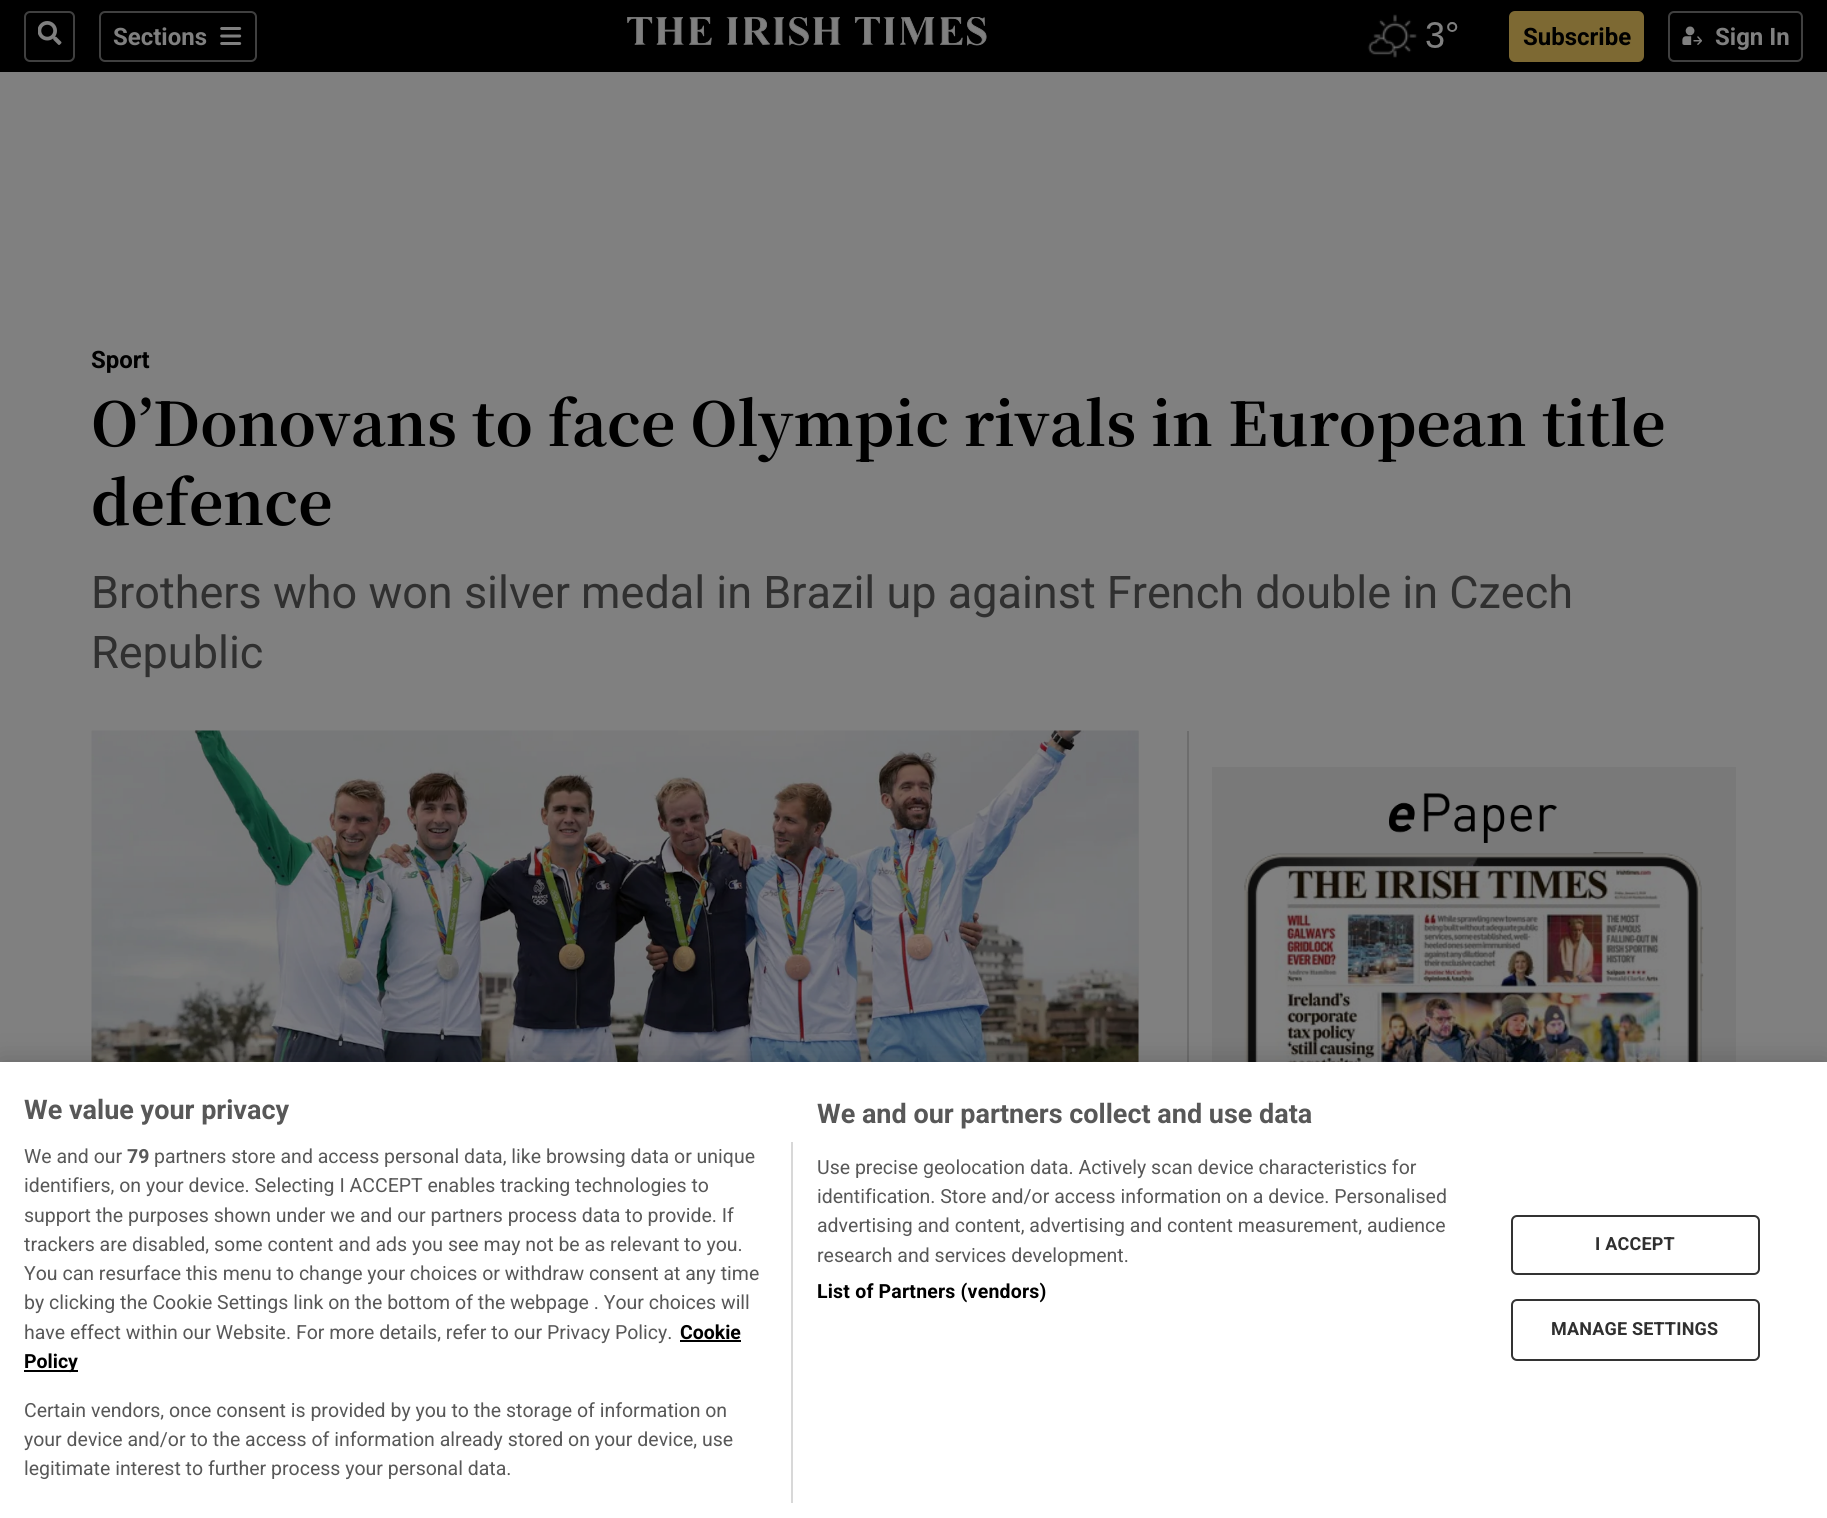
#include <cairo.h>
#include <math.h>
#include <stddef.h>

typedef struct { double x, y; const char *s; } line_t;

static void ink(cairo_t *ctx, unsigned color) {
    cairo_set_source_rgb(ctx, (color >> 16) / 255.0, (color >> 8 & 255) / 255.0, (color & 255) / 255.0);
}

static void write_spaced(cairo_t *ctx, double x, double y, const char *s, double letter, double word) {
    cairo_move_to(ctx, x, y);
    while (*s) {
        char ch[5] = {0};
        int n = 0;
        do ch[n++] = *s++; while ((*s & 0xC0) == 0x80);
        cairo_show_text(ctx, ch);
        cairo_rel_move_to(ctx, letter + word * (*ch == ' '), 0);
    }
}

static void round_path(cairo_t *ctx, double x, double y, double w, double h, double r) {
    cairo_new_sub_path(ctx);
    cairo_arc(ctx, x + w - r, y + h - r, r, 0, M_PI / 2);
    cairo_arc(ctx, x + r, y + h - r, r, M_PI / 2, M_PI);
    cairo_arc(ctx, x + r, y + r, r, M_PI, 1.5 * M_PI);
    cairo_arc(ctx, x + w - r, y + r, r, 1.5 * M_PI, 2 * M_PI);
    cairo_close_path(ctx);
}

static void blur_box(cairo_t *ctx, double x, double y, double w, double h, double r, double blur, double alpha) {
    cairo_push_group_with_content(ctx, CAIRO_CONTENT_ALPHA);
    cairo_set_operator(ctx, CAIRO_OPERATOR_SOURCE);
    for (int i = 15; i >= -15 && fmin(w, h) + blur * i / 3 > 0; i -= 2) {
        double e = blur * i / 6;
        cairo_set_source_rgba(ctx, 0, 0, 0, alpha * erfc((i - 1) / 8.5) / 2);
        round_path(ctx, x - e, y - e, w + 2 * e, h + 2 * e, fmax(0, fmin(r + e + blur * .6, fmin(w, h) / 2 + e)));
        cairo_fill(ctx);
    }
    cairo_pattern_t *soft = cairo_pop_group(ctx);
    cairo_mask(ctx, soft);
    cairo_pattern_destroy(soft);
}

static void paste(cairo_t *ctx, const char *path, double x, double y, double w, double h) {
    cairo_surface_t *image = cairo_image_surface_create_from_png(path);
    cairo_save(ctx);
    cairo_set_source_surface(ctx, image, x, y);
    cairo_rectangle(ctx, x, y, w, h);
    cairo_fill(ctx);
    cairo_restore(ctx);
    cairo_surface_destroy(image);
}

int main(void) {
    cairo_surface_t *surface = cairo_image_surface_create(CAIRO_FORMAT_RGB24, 1827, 1518);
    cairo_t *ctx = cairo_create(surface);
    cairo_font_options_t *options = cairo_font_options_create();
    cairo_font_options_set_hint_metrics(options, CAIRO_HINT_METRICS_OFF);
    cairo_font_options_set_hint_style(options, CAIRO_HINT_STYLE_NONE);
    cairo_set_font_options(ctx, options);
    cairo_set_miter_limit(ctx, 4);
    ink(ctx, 0x808080);
    cairo_paint(ctx);
    ink(ctx, 0x000000);
    cairo_rectangle(ctx, 0, 0, 1827, 72);
    cairo_fill(ctx);
    round_path(ctx, 25, 12, 49, 49, 5);
    ink(ctx, 0x404040);
    cairo_stroke(ctx);
    paste(ctx, "media/1.png", 38, 21, 24, 24);
    round_path(ctx, 100, 12, 156, 49, 5);
    cairo_stroke(ctx);
    cairo_select_font_face(ctx, "Roboto", CAIRO_FONT_SLANT_NORMAL, CAIRO_FONT_WEIGHT_BOLD);
    cairo_set_font_size(ctx, 24);
    ink(ctx, 0x808080);
    cairo_move_to(ctx, 113, 45);
    cairo_show_text(ctx, "Sections");
    paste(ctx, "media/2.png", 220, 27, 22, 18);
    paste(ctx, "media/3.png", 627, 17, 360, 29);
    paste(ctx, "media/4.png", 1367, 14, 91, 44);
    ink(ctx, 0x7D6933);
    round_path(ctx, 1509, 11, 135, 51, 6);
    cairo_fill(ctx);
    ink(ctx, 0x000000);
    cairo_move_to(ctx, 1523, 45);
    cairo_show_text(ctx, "Subscribe");
    round_path(ctx, 1669, 12, 133, 49, 5);
    ink(ctx, 0x404040);
    cairo_stroke(ctx);
    paste(ctx, "media/5.png", 1682, 26, 20, 19);
    ink(ctx, 0x808080);
    cairo_move_to(ctx, 1715, 45);
    cairo_show_text(ctx, "Sign In");
    ink(ctx, 0x000000);
    cairo_move_to(ctx, 91, 368);
    cairo_show_text(ctx, "Sport");
    cairo_select_font_face(ctx, "Noto Serif JP ExtraLight", CAIRO_FONT_SLANT_NORMAL, CAIRO_FONT_WEIGHT_NORMAL);
    cairo_set_font_size(ctx, 60);
    cairo_move_to(ctx, 91, 446);
    cairo_show_text(ctx, "O’Donovans to face Olympic rivals in European title");
    cairo_move_to(ctx, 91, 525);
    cairo_show_text(ctx, "defence");
    cairo_select_font_face(ctx, "Roboto", CAIRO_FONT_SLANT_NORMAL, CAIRO_FONT_WEIGHT_NORMAL);
    cairo_set_font_size(ctx, 45);
    ink(ctx, 0x303030);
    cairo_move_to(ctx, 91, 608);
    cairo_show_text(ctx, "Brothers who won silver medal in Brazil up against French double in Czech");
    cairo_move_to(ctx, 91, 668);
    cairo_show_text(ctx, "Republic");
    ink(ctx, 0x6D6D6D);
    cairo_rectangle(ctx, 1187, 731, 2, 331);
    cairo_fill(ctx);
    ink(ctx, 0x7B7B7B);
    cairo_rectangle(ctx, 1138, 731, 1, 331);
    cairo_fill(ctx);
    paste(ctx, "media/6.png", 91, 730, 1048, 332);
    ink(ctx, 0x797979);
    cairo_rectangle(ctx, 1212, 767, 524, 295);
    cairo_fill(ctx);
    paste(ctx, "media/7.png", 1389, 793, 168, 50);
    paste(ctx, "media/9.png", 1255, 867, 437, 195);
    paste(ctx, "media/8.png", 1244, 852, 460, 210);
    ink(ctx, 0x000000);
    blur_box(ctx, 0, 1062, 1827, 456, 0, 13.5, 0.2);
    ink(ctx, 0xFFFFFF);
    cairo_rectangle(ctx, 0, 1062, 1827, 456);
    cairo_fill(ctx);
    cairo_select_font_face(ctx, "Roboto", CAIRO_FONT_SLANT_NORMAL, CAIRO_FONT_WEIGHT_BOLD);
    cairo_set_font_size(ctx, 27);
    ink(ctx, 0x585858);
    cairo_move_to(ctx, 24, 1119);
    cairo_show_text(ctx, "We value your privacy");
    cairo_move_to(ctx, 817, 1123);
    cairo_show_text(ctx, "We and our partners collect and use data");
    cairo_select_font_face(ctx, "Roboto", CAIRO_FONT_SLANT_NORMAL, CAIRO_FONT_WEIGHT_NORMAL);
    cairo_set_font_size(ctx, 19.5);
    {
        static const line_t items[] = {
            {817, 1174, "Use precise geolocation data. Actively scan device characteristics for"},
            {817, 1203, "identification. Store and/or access information on a device. Personalised"},
            {817, 1232, "advertising and content, advertising and content measurement, audience"},
            {817, 1262, "research and services development."},
        };
        for (size_t i = 0; i < sizeof items / sizeof *items; i++) {
            cairo_move_to(ctx, items[i].x, items[i].y);
            cairo_show_text(ctx, items[i].s);
        }
    }
    cairo_select_font_face(ctx, "Roboto", CAIRO_FONT_SLANT_NORMAL, CAIRO_FONT_WEIGHT_BOLD);
    ink(ctx, 0x000000);
    write_spaced(ctx, 817, 1298, "List of Partners (vendors)", 0.2, 0);
    ink(ctx, 0xD8D8D8);
    cairo_rectangle(ctx, 791, 1142, 2, 361);
    cairo_fill(ctx);
    cairo_select_font_face(ctx, "Roboto", CAIRO_FONT_SLANT_NORMAL, CAIRO_FONT_WEIGHT_NORMAL);
    ink(ctx, 0x585858);
    cairo_move_to(ctx, 24, 1163);
    cairo_show_text(ctx, "We and our");
    cairo_select_font_face(ctx, "Roboto", CAIRO_FONT_SLANT_NORMAL, CAIRO_FONT_WEIGHT_BOLD);
    cairo_move_to(ctx, 127, 1163);
    cairo_show_text(ctx, "79");
    cairo_select_font_face(ctx, "Roboto", CAIRO_FONT_SLANT_NORMAL, CAIRO_FONT_WEIGHT_NORMAL);
    {
        static const line_t items[] = {
            {154, 1163, "partners store and access personal data, like browsing data or unique"},
            {24, 1192, "identifiers, on your device. Selecting I ACCEPT enables tracking technologies to"},
            {24, 1222, "support the purposes shown under we and our partners process data to provide. If"},
            {24, 1251, "trackers are disabled, some content and ads you see may not be as relevant to you."},
            {24, 1280, "You can resurface this menu to change your choices or withdraw consent at any time"},
            {24, 1309, "by clicking the Cookie Settings link on the bottom of the webpage . Your choices will"},
            {24, 1339, "have effect within our Website. For more details, refer to our Privacy Policy."},
        };
        for (size_t i = 0; i < sizeof items / sizeof *items; i++) {
            cairo_move_to(ctx, items[i].x, items[i].y);
            cairo_show_text(ctx, items[i].s);
        }
    }
    cairo_select_font_face(ctx, "Roboto", CAIRO_FONT_SLANT_NORMAL, CAIRO_FONT_WEIGHT_BOLD);
    ink(ctx, 0x000000);
    cairo_move_to(ctx, 680, 1339);
    cairo_show_text(ctx, "Cookie");
    cairo_rectangle(ctx, 680, 1340, 61, 2);
    cairo_fill(ctx);
    cairo_rectangle(ctx, 24, 1370, 54, 2);
    cairo_fill(ctx);
    cairo_move_to(ctx, 24, 1368);
    cairo_show_text(ctx, "Policy");
    cairo_select_font_face(ctx, "Roboto", CAIRO_FONT_SLANT_NORMAL, CAIRO_FONT_WEIGHT_NORMAL);
    ink(ctx, 0x585858);
    {
        static const line_t items[] = {
            {24, 1417, "Certain vendors, once consent is provided by you to the storage of information on"},
            {24, 1446, "your device and/or to the access of information already stored on your device, use"},
            {24, 1475, "legitimate interest to further process your personal data."},
        };
        for (size_t i = 0; i < sizeof items / sizeof *items; i++) {
            cairo_move_to(ctx, items[i].x, items[i].y);
            cairo_show_text(ctx, items[i].s);
        }
    }
    round_path(ctx, 1512, 1216, 247, 58, 5);
    ink(ctx, 0x333333);
    cairo_stroke(ctx);
    cairo_select_font_face(ctx, "Roboto", CAIRO_FONT_SLANT_NORMAL, CAIRO_FONT_WEIGHT_BOLD);
    cairo_set_font_size(ctx, 18);
    ink(ctx, 0x303030);
    write_spaced(ctx, 1595, 1250, "I ACCEPT", 0.2, 0);
    round_path(ctx, 1512, 1300, 247, 60, 5);
    ink(ctx, 0x333333);
    cairo_stroke(ctx);
    ink(ctx, 0x303030);
    write_spaced(ctx, 1551, 1335, "MANAGE SETTINGS", 0.2, 0);
    cairo_surface_write_to_png(surface, "image.png");
    cairo_font_options_destroy(options);
    cairo_destroy(ctx);
    cairo_surface_destroy(surface);
    return 0;
}
